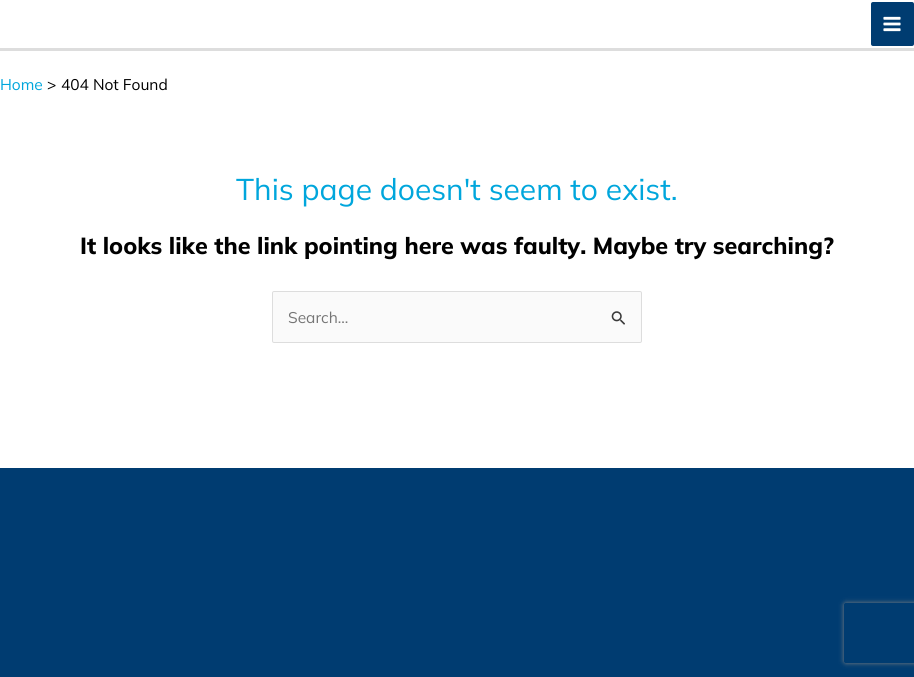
#include <cairo.h>
#include <math.h>
#include <stddef.h>


static void ink(cairo_t *ctx, unsigned color) {
    cairo_set_source_rgb(ctx, (color >> 16) / 255.0, (color >> 8 & 255) / 255.0, (color & 255) / 255.0);
}

static void round_path(cairo_t *ctx, double x, double y, double w, double h, double r) {
    cairo_new_sub_path(ctx);
    cairo_arc(ctx, x + w - r, y + h - r, r, 0, M_PI / 2);
    cairo_arc(ctx, x + r, y + h - r, r, M_PI / 2, M_PI);
    cairo_arc(ctx, x + r, y + r, r, M_PI, 1.5 * M_PI);
    cairo_arc(ctx, x + w - r, y + r, r, 1.5 * M_PI, 2 * M_PI);
    cairo_close_path(ctx);
}

static void blur_box(cairo_t *ctx, double x, double y, double w, double h, double r, double blur, double alpha) {
    cairo_push_group_with_content(ctx, CAIRO_CONTENT_ALPHA);
    cairo_set_operator(ctx, CAIRO_OPERATOR_SOURCE);
    for (int i = 15; i >= -15 && fmin(w, h) + blur * i / 3 > 0; i -= 2) {
        double e = blur * i / 6;
        cairo_set_source_rgba(ctx, 0, 0, 0, alpha * erfc((i - 1) / 8.5) / 2);
        round_path(ctx, x - e, y - e, w + 2 * e, h + 2 * e, fmax(0, fmin(r + e + blur * .6, fmin(w, h) / 2 + e)));
        cairo_fill(ctx);
    }
    cairo_pattern_t *soft = cairo_pop_group(ctx);
    cairo_mask(ctx, soft);
    cairo_pattern_destroy(soft);
}

static void paste(cairo_t *ctx, const char *path, double x, double y, double w, double h) {
    cairo_surface_t *image = cairo_image_surface_create_from_png(path);
    cairo_save(ctx);
    cairo_set_source_surface(ctx, image, x, y);
    cairo_rectangle(ctx, x, y, w, h);
    cairo_fill(ctx);
    cairo_restore(ctx);
    cairo_surface_destroy(image);
}

int main(void) {
    cairo_surface_t *surface = cairo_image_surface_create(CAIRO_FORMAT_RGB24, 914, 677);
    cairo_t *ctx = cairo_create(surface);
    cairo_font_options_t *options = cairo_font_options_create();
    cairo_font_options_set_hint_metrics(options, CAIRO_HINT_METRICS_OFF);
    cairo_font_options_set_hint_style(options, CAIRO_HINT_STYLE_NONE);
    cairo_set_font_options(ctx, options);
    cairo_set_miter_limit(ctx, 4);
    ink(ctx, 0xFFFFFF);
    cairo_paint(ctx);
    ink(ctx, 0xDDDDDD);
    cairo_rectangle(ctx, 0, 48, 914, 3);
    cairo_fill(ctx);
    ink(ctx, 0x003C71);
    round_path(ctx, 871, 2, 43, 44, 2);
    cairo_fill(ctx);
    paste(ctx, "media/1.png", 883, 16, 18, 16);
    cairo_select_font_face(ctx, "Mulish", CAIRO_FONT_SLANT_NORMAL, CAIRO_FONT_WEIGHT_NORMAL);
    cairo_set_font_size(ctx, 15.5);
    ink(ctx, 0x00A6DC);
    cairo_move_to(ctx, 0, 90);
    cairo_show_text(ctx, "Home");
    ink(ctx, 0x000000);
    cairo_move_to(ctx, 47, 90);
    cairo_show_text(ctx, ">");
    cairo_move_to(ctx, 61, 90);
    cairo_show_text(ctx, "404 Not Found");
    cairo_set_font_size(ctx, 30);
    ink(ctx, 0x00A6DC);
    cairo_move_to(ctx, 236, 200);
    cairo_show_text(ctx, "This page doesn't seem to exist.");
    cairo_select_font_face(ctx, "Mulish ExtraBold", CAIRO_FONT_SLANT_NORMAL, CAIRO_FONT_WEIGHT_NORMAL);
    cairo_set_font_size(ctx, 23.25);
    ink(ctx, 0x000000);
    cairo_move_to(ctx, 80, 254);
    cairo_show_text(ctx, "It looks like the link pointing here was faulty. Maybe try searching?");
    ink(ctx, 0xFAFAFA);
    round_path(ctx, 272.5, 291.5, 369, 51, 1.5);
    cairo_fill_preserve(ctx);
    ink(ctx, 0xDDDDDD);
    cairo_set_line_width(ctx, 1);
    cairo_stroke(ctx);
    cairo_select_font_face(ctx, "Mulish", CAIRO_FONT_SLANT_NORMAL, CAIRO_FONT_WEIGHT_NORMAL);
    cairo_set_font_size(ctx, 15.5);
    ink(ctx, 0x757575);
    cairo_move_to(ctx, 288, 323);
    cairo_show_text(ctx, "Search...");
    paste(ctx, "media/2.png", 611, 311, 14, 14);
    ink(ctx, 0x003C71);
    cairo_rectangle(ctx, 0, 468, 914, 209);
    cairo_fill(ctx);
    cairo_save(ctx);
    cairo_set_fill_rule(ctx, CAIRO_FILL_RULE_EVEN_ODD);
    cairo_new_path(ctx);
    cairo_move_to(ctx, 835, 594);
    cairo_line_to(ctx, 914, 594);
    cairo_line_to(ctx, 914, 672);
    cairo_line_to(ctx, 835, 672);
    cairo_close_path(ctx);
    cairo_move_to(ctx, 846, 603);
    cairo_line_to(ctx, 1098, 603);
    cairo_curve_to(ctx, 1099, 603, 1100, 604, 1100, 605);
    cairo_line_to(ctx, 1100, 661);
    cairo_curve_to(ctx, 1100, 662, 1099, 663, 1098, 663);
    cairo_line_to(ctx, 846, 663);
    cairo_curve_to(ctx, 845, 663, 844, 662, 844, 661);
    cairo_line_to(ctx, 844, 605);
    cairo_curve_to(ctx, 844, 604, 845, 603, 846, 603);
    cairo_close_path(ctx);
    cairo_clip(ctx);
    ink(ctx, 0x808080);
    blur_box(ctx, 844, 603, 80, 60, 2, 2.5, 1);
    cairo_restore(ctx);
    cairo_surface_write_to_png(surface, "image.png");
    cairo_font_options_destroy(options);
    cairo_destroy(ctx);
    cairo_surface_destroy(surface);
    return 0;
}
